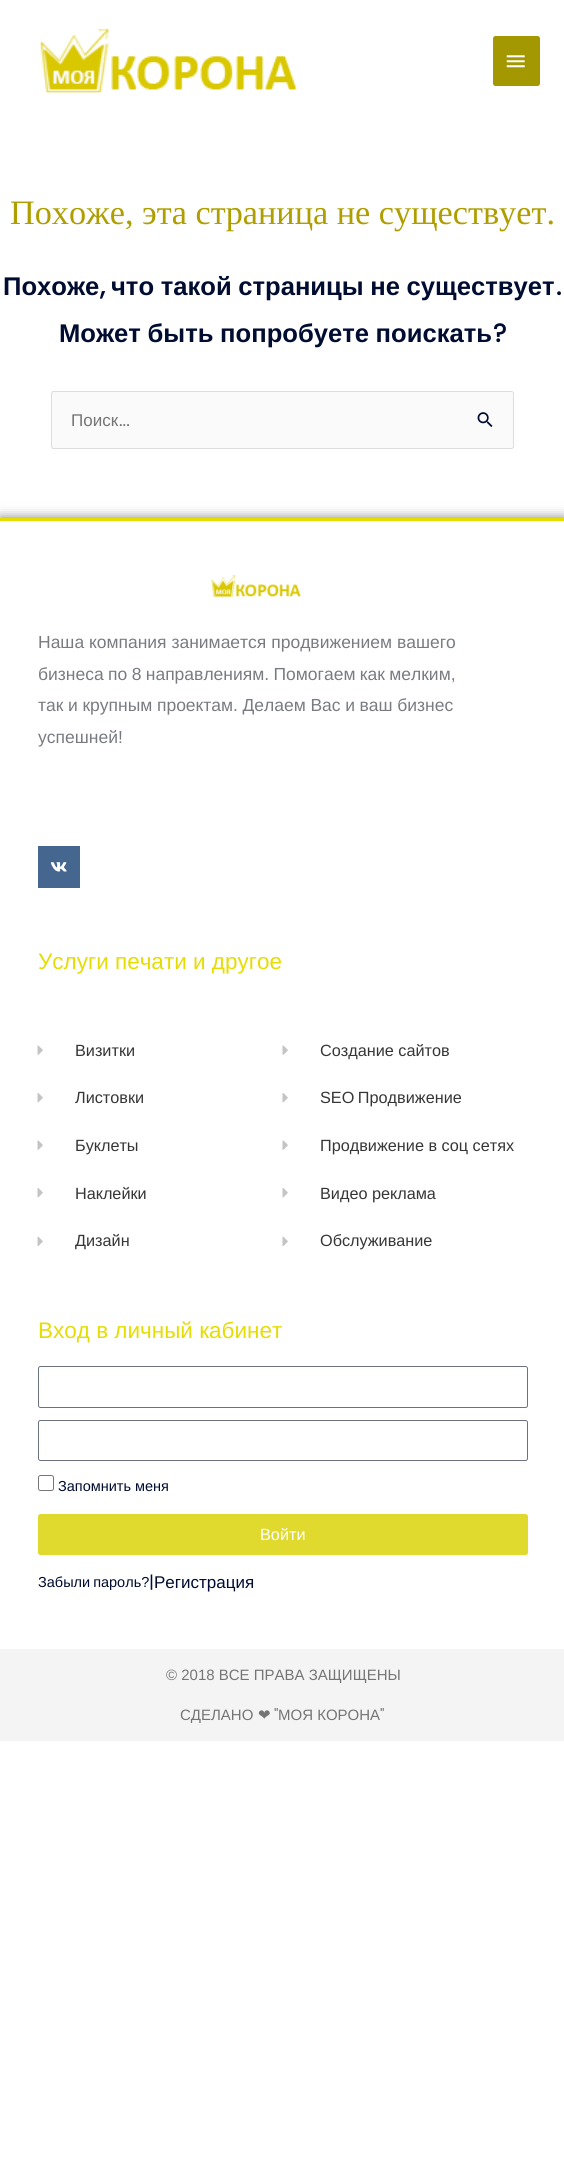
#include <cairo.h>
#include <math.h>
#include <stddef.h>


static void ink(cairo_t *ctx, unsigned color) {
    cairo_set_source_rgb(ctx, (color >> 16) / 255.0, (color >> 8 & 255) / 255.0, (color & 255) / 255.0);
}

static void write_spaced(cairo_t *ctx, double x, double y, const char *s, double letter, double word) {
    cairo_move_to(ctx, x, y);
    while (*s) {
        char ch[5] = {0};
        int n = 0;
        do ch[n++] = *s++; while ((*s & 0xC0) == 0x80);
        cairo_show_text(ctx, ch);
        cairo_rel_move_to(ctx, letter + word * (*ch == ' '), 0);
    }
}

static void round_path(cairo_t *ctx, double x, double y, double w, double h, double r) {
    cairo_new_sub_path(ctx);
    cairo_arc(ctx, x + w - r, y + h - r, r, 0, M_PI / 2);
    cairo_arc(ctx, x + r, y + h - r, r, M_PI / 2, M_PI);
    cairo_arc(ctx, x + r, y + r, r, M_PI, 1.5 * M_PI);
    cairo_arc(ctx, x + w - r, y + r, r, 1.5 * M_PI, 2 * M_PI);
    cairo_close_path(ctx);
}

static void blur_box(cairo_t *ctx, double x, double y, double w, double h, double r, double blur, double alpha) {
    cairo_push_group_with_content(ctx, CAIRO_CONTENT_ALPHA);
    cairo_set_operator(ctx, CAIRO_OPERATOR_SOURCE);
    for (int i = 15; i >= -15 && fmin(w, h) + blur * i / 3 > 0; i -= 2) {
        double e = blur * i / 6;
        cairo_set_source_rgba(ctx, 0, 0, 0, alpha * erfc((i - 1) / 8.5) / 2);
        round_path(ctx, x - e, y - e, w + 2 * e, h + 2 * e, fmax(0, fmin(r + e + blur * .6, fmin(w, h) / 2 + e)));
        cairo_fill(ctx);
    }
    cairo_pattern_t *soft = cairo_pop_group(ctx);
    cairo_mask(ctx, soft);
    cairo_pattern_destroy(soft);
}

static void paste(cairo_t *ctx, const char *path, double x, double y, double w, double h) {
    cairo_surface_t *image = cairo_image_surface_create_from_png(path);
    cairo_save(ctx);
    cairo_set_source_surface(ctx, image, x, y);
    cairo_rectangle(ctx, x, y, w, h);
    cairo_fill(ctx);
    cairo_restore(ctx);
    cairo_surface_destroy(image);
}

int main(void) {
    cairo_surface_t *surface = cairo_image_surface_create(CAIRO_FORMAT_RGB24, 564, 2171);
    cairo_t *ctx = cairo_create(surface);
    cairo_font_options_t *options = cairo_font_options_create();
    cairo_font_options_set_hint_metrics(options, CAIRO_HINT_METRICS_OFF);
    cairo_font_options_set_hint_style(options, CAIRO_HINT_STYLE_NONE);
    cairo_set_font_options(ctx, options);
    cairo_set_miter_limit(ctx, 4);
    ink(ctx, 0xFFFFFF);
    cairo_paint(ctx);
    paste(ctx, "media/1.png", 40, 28, 257, 65);
    ink(ctx, 0xA39800);
    round_path(ctx, 493, 36, 47, 50, 2.5);
    cairo_fill(ctx);
    paste(ctx, "media/2.png", 506, 55, 19, 13);
    cairo_select_font_face(ctx, "Liberation Serif", CAIRO_FONT_SLANT_NORMAL, CAIRO_FONT_WEIGHT_NORMAL);
    cairo_set_font_size(ctx, 34.25);
    ink(ctx, 0xAF9E00);
    cairo_move_to(ctx, 10, 224);
    cairo_show_text(ctx, "Похоже, эта страница не существует.");
    cairo_select_font_face(ctx, "Liberation Sans", CAIRO_FONT_SLANT_NORMAL, CAIRO_FONT_WEIGHT_BOLD);
    cairo_set_font_size(ctx, 25.6);
    ink(ctx, 0x000C30);
    cairo_move_to(ctx, 3, 295);
    cairo_show_text(ctx, "Похоже");
    cairo_select_font_face(ctx, "Poppins", CAIRO_FONT_SLANT_NORMAL, CAIRO_FONT_WEIGHT_BOLD);
    cairo_move_to(ctx, 100, 295);
    cairo_show_text(ctx, ",");
    cairo_select_font_face(ctx, "Liberation Sans", CAIRO_FONT_SLANT_NORMAL, CAIRO_FONT_WEIGHT_BOLD);
    write_spaced(ctx, 111, 295, "что такой страницы не существует", 0, -0.5);
    cairo_select_font_face(ctx, "Poppins", CAIRO_FONT_SLANT_NORMAL, CAIRO_FONT_WEIGHT_BOLD);
    cairo_move_to(ctx, 556, 295);
    cairo_show_text(ctx, ".");
    cairo_select_font_face(ctx, "Liberation Sans", CAIRO_FONT_SLANT_NORMAL, CAIRO_FONT_WEIGHT_BOLD);
    write_spaced(ctx, 59, 342, "Может быть попробуете поискать", 0, -0.5);
    cairo_select_font_face(ctx, "Poppins", CAIRO_FONT_SLANT_NORMAL, CAIRO_FONT_WEIGHT_BOLD);
    cairo_move_to(ctx, 493, 342);
    cairo_show_text(ctx, "?");
    ink(ctx, 0xFAFAFA);
    round_path(ctx, 51.5, 391.5, 462, 57, 2);
    cairo_fill_preserve(ctx);
    ink(ctx, 0xDDDDDD);
    cairo_set_line_width(ctx, 1);
    cairo_stroke(ctx);
    cairo_select_font_face(ctx, "Liberation Sans", CAIRO_FONT_SLANT_NORMAL, CAIRO_FONT_WEIGHT_NORMAL);
    cairo_set_font_size(ctx, 17);
    ink(ctx, 0x757575);
    cairo_move_to(ctx, 71, 426);
    cairo_show_text(ctx, "Поиск");
    cairo_select_font_face(ctx, "Poppins", CAIRO_FONT_SLANT_NORMAL, CAIRO_FONT_WEIGHT_NORMAL);
    cairo_move_to(ctx, 119, 426);
    cairo_show_text(ctx, "...");
    paste(ctx, "media/3.png", 477, 412, 16, 15);
    cairo_save(ctx);
    cairo_set_fill_rule(ctx, CAIRO_FILL_RULE_EVEN_ODD);
    cairo_new_path(ctx);
    cairo_move_to(ctx, 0, 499);
    cairo_line_to(ctx, 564, 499);
    cairo_line_to(ctx, 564, 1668);
    cairo_line_to(ctx, 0, 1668);
    cairo_close_path(ctx);
    cairo_move_to(ctx, 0, 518);
    cairo_line_to(ctx, 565, 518);
    cairo_line_to(ctx, 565, 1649);
    cairo_line_to(ctx, 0, 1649);
    cairo_close_path(ctx);
    cairo_clip(ctx);
    ink(ctx, 0x000000);
    blur_box(ctx, 0, 518, 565, 1131, 0, 6, 0.5);
    cairo_restore(ctx);
    ink(ctx, 0xE5DD02);
    cairo_rectangle(ctx, 0, 518, 564, 3);
    cairo_fill(ctx);
    paste(ctx, "media/4.png", 211, 575, 90, 23);
    cairo_select_font_face(ctx, "Liberation Sans", CAIRO_FONT_SLANT_NORMAL, CAIRO_FONT_WEIGHT_NORMAL);
    cairo_set_font_size(ctx, 17.5);
    ink(ctx, 0x787C81);
    cairo_move_to(ctx, 38, 648);
    cairo_show_text(ctx, "Наша компания занимается продвижением вашего");
    write_spaced(ctx, 38, 680, "бизнеса по 8 направлениям. Помогаем как мелким,", 0, -0.5);
    write_spaced(ctx, 38, 711, "так и крупным проектам. Делаем Вас и ваш бизнес", 0, -0.25);
    cairo_move_to(ctx, 38, 743);
    cairo_show_text(ctx, "успешней!");
    ink(ctx, 0x45668E);
    cairo_rectangle(ctx, 38, 846, 42, 42);
    cairo_fill(ctx);
    paste(ctx, "media/5.png", 50, 862, 17, 10);
    cairo_set_font_size(ctx, 22.5);
    ink(ctx, 0xE5DD02);
    cairo_move_to(ctx, 38, 969);
    cairo_show_text(ctx, "Услуги печати и другое");
    paste(ctx, "media/6.png", 37, 1045, 6, 10);
    cairo_set_font_size(ctx, 16.25);
    ink(ctx, 0x363636);
    cairo_move_to(ctx, 75, 1056);
    cairo_show_text(ctx, "Визитки");
    paste(ctx, "media/7.png", 37, 1093, 6, 10);
    cairo_move_to(ctx, 75, 1103);
    cairo_show_text(ctx, "Листовки");
    paste(ctx, "media/6.png", 37, 1140, 6, 10);
    cairo_move_to(ctx, 75, 1151);
    cairo_show_text(ctx, "Буклеты");
    paste(ctx, "media/7.png", 37, 1188, 6, 10);
    cairo_move_to(ctx, 75, 1199);
    cairo_show_text(ctx, "Наклейки");
    paste(ctx, "media/8.png", 37, 1236, 6, 10);
    cairo_move_to(ctx, 75, 1246);
    cairo_show_text(ctx, "Дизайн");
    paste(ctx, "media/6.png", 282, 1045, 6, 10);
    cairo_move_to(ctx, 320, 1056);
    cairo_show_text(ctx, "Создание сайтов");
    paste(ctx, "media/7.png", 282, 1093, 6, 10);
    write_spaced(ctx, 320, 1103, "SEO Продвижение", 0, -1);
    paste(ctx, "media/6.png", 282, 1140, 6, 10);
    cairo_move_to(ctx, 320, 1151);
    cairo_show_text(ctx, "Продвижение в соц сетях");
    paste(ctx, "media/7.png", 282, 1188, 6, 10);
    cairo_move_to(ctx, 320, 1199);
    cairo_show_text(ctx, "Видео реклама");
    paste(ctx, "media/8.png", 282, 1236, 6, 10);
    cairo_move_to(ctx, 320, 1246);
    cairo_show_text(ctx, "Обслуживание");
    cairo_set_font_size(ctx, 22.5);
    ink(ctx, 0xE5DD02);
    cairo_move_to(ctx, 38, 1338);
    cairo_show_text(ctx, "Вход в личный кабинет");
    round_path(ctx, 38.5, 1366.5, 489, 41, 2);
    ink(ctx, 0x69727D);
    cairo_stroke(ctx);
    round_path(ctx, 38.5, 1420.5, 489, 40, 2);
    cairo_stroke(ctx);
    round_path(ctx, 38.5, 1475.5, 15, 15, 2);
    ink(ctx, 0x767676);
    cairo_stroke(ctx);
    cairo_set_font_size(ctx, 14.5);
    ink(ctx, 0x000C30);
    cairo_move_to(ctx, 58, 1491);
    cairo_show_text(ctx, "Запомнить меня");
    ink(ctx, 0xE0DA2F);
    round_path(ctx, 38, 1514, 490, 41, 2.5);
    cairo_fill(ctx);
    cairo_set_font_size(ctx, 16.25);
    ink(ctx, 0xFFFFFF);
    cairo_move_to(ctx, 260, 1540);
    cairo_show_text(ctx, "Войти");
    cairo_set_font_size(ctx, 14.5);
    ink(ctx, 0x000C30);
    write_spaced(ctx, 38, 1587, "Забыли пароль?", 0, -1);
    cairo_select_font_face(ctx, "Poppins", CAIRO_FONT_SLANT_NORMAL, CAIRO_FONT_WEIGHT_NORMAL);
    cairo_set_font_size(ctx, 17);
    cairo_move_to(ctx, 149, 1588);
    cairo_show_text(ctx, "|");
    cairo_select_font_face(ctx, "Liberation Sans", CAIRO_FONT_SLANT_NORMAL, CAIRO_FONT_WEIGHT_NORMAL);
    cairo_move_to(ctx, 154, 1588);
    cairo_show_text(ctx, "Регистрация");
    ink(ctx, 0xF4F4F4);
    cairo_rectangle(ctx, 0, 1649, 564, 92);
    cairo_fill(ctx);
    cairo_set_font_size(ctx, 15);
    ink(ctx, 0x757575);
    cairo_move_to(ctx, 166, 1680);
    cairo_show_text(ctx, "© 2018 ВСЕ ПРАВА ЗАЩИЩЕНЫ");
    cairo_move_to(ctx, 180, 1720);
    cairo_show_text(ctx, "СДЕЛАНО");
    cairo_select_font_face(ctx, "DejaVu Sans", CAIRO_FONT_SLANT_NORMAL, CAIRO_FONT_WEIGHT_NORMAL);
    cairo_move_to(ctx, 258, 1720);
    cairo_show_text(ctx, "❤");
    cairo_select_font_face(ctx, "Poppins", CAIRO_FONT_SLANT_NORMAL, CAIRO_FONT_WEIGHT_NORMAL);
    cairo_move_to(ctx, 274, 1720);
    cairo_show_text(ctx, "\"");
    cairo_select_font_face(ctx, "Liberation Sans", CAIRO_FONT_SLANT_NORMAL, CAIRO_FONT_WEIGHT_NORMAL);
    cairo_move_to(ctx, 278, 1720);
    cairo_show_text(ctx, "МОЯ КОРОНА");
    cairo_select_font_face(ctx, "Poppins", CAIRO_FONT_SLANT_NORMAL, CAIRO_FONT_WEIGHT_NORMAL);
    cairo_move_to(ctx, 380, 1720);
    cairo_show_text(ctx, "\"");
    cairo_surface_write_to_png(surface, "image.png");
    cairo_font_options_destroy(options);
    cairo_destroy(ctx);
    cairo_surface_destroy(surface);
    return 0;
}
